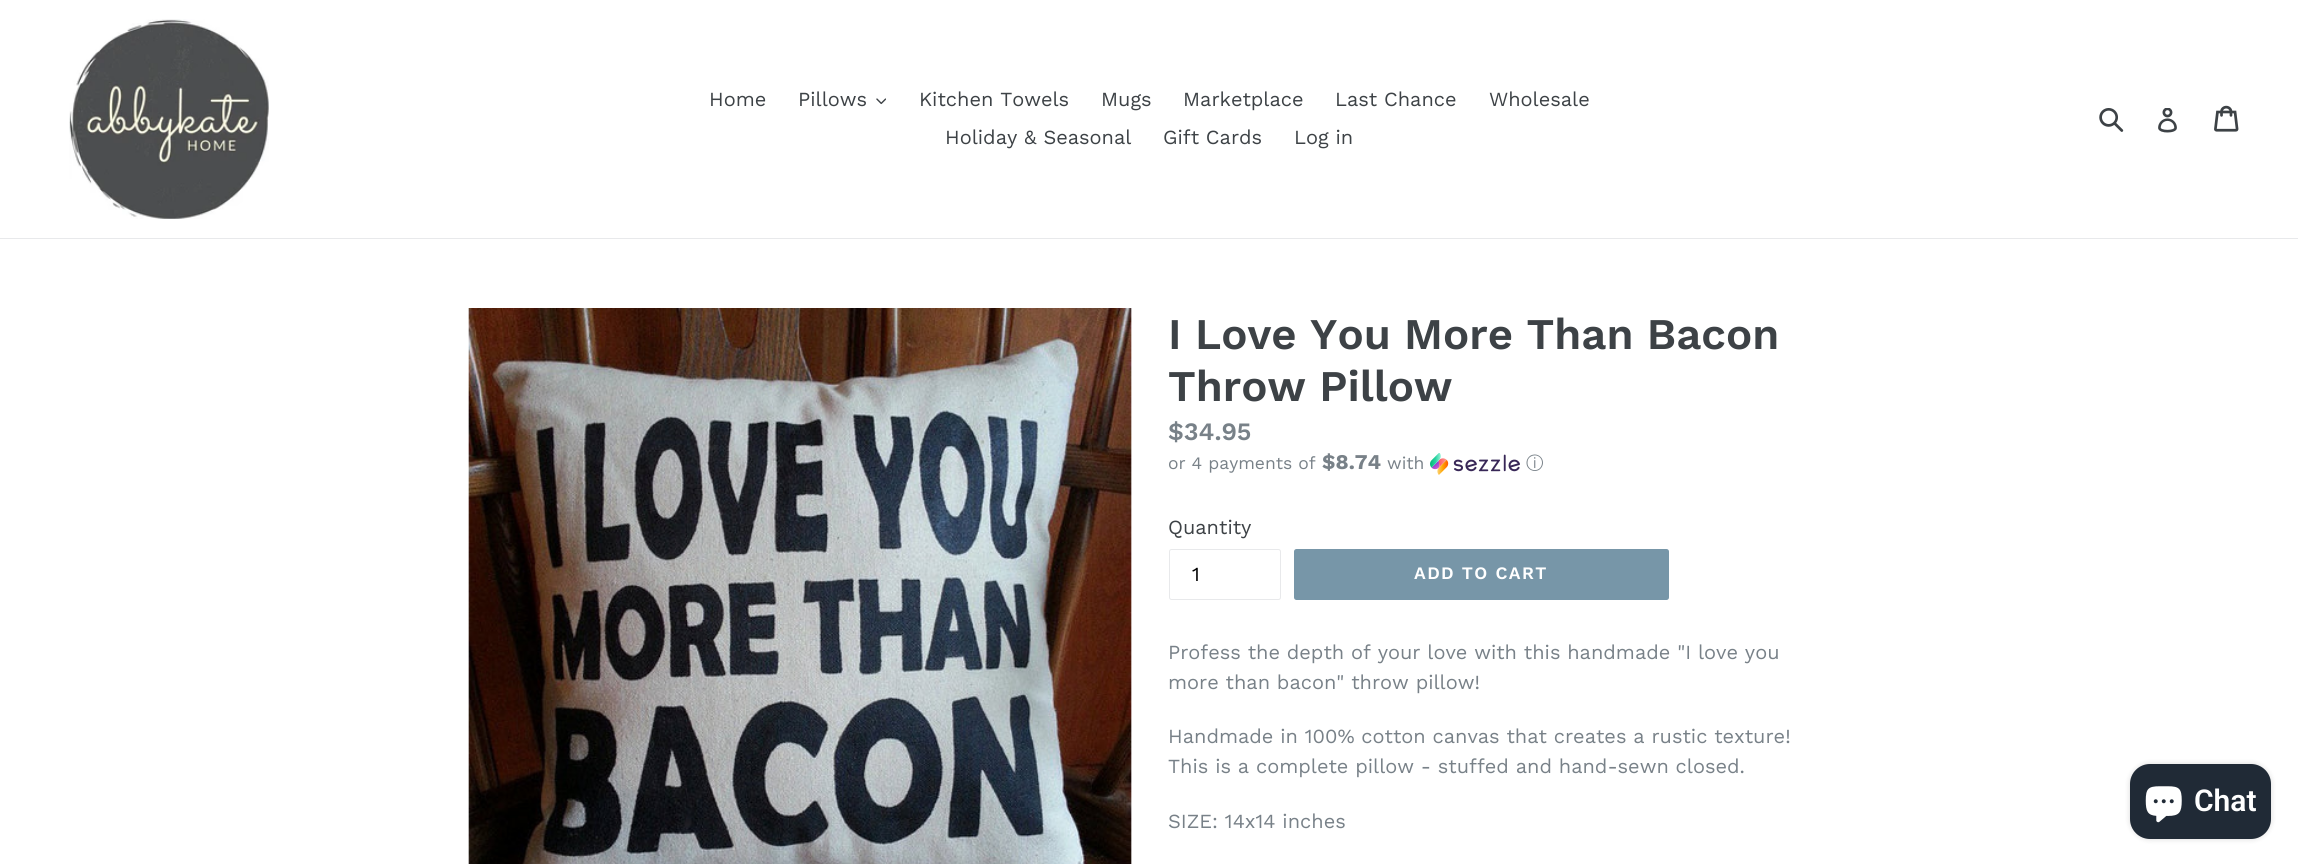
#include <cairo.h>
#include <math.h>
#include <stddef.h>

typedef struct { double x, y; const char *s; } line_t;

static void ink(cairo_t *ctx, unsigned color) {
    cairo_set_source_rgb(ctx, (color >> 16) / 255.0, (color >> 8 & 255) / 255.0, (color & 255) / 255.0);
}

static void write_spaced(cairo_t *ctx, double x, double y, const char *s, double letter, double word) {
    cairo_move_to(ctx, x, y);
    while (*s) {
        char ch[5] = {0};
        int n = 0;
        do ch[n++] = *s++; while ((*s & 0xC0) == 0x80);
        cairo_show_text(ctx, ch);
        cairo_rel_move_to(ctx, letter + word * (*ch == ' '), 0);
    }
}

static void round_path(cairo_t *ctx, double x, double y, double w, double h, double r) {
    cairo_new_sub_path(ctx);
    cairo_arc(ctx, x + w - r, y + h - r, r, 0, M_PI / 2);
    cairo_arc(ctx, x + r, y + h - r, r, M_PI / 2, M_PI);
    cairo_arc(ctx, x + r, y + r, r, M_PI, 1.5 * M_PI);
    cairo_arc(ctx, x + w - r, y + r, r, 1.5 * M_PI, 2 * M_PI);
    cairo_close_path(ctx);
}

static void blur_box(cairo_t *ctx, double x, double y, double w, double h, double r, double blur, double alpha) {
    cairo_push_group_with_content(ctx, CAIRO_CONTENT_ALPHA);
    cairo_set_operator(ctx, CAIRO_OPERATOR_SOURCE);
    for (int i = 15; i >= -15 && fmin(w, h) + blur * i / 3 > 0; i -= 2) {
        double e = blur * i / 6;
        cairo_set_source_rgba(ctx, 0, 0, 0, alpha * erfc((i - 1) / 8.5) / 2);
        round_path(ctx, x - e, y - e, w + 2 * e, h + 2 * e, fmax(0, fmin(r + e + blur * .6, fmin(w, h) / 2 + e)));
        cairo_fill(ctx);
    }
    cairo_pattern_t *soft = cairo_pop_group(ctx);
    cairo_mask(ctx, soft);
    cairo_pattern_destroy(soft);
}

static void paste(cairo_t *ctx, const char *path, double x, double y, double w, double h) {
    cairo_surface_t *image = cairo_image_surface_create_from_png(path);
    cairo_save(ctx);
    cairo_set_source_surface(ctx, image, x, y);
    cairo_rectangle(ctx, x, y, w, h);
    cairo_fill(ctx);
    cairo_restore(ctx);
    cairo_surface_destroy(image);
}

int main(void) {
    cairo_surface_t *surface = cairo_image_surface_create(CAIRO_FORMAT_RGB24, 2298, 864);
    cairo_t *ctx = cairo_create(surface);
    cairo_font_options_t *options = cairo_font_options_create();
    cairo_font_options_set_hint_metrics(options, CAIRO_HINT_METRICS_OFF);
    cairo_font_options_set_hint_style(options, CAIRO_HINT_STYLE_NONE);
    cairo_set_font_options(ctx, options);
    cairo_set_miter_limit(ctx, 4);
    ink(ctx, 0xFFFFFF);
    cairo_paint(ctx);
    ink(ctx, 0xE8E9EB);
    cairo_rectangle(ctx, 0, 238, 2298, 1);
    cairo_fill(ctx);
    paste(ctx, "media/1.png", 69, 19, 200, 200);
    cairo_select_font_face(ctx, "Work Sans", CAIRO_FONT_SLANT_NORMAL, CAIRO_FONT_WEIGHT_NORMAL);
    cairo_set_font_size(ctx, 20);
    ink(ctx, 0x3D4246);
    cairo_move_to(ctx, 709, 106);
    cairo_show_text(ctx, "Home");
    cairo_move_to(ctx, 798, 106);
    cairo_show_text(ctx, "Pillows");
    paste(ctx, "media/2.png", 876, 98, 10, 7);
    {
        static const line_t items[] = {
            {919, 106, "Kitchen Towels"},
            {1101, 106, "Mugs"},
            {1183, 106, "Marketplace"},
            {1335, 106, "Last Chance"},
            {1489, 106, "Wholesale"},
            {945, 144, "Holiday & Seasonal"},
            {1163, 144, "Gift Cards"},
            {1294, 144, "Log in"},
        };
        for (size_t i = 0; i < sizeof items / sizeof *items; i++) {
            cairo_move_to(ctx, items[i].x, items[i].y);
            cairo_show_text(ctx, items[i].s);
        }
    }
    paste(ctx, "media/3.png", 2099, 108, 25, 24);
    paste(ctx, "media/4.png", 2158, 108, 19, 25);
    paste(ctx, "media/5.png", 2214, 105, 25, 27);
    paste(ctx, "media/6.png", 468, 308, 664, 556);
    cairo_select_font_face(ctx, "Work Sans SemiBold", CAIRO_FONT_SLANT_NORMAL, CAIRO_FONT_WEIGHT_NORMAL);
    cairo_set_font_size(ctx, 43.75);
    cairo_move_to(ctx, 1168, 349);
    cairo_show_text(ctx, "I Love You More Than Bacon");
    cairo_move_to(ctx, 1168, 401);
    cairo_show_text(ctx, "Throw Pillow");
    cairo_set_font_size(ctx, 25);
    ink(ctx, 0x788188);
    cairo_move_to(ctx, 1168, 440);
    cairo_show_text(ctx, "$34.95");
    cairo_select_font_face(ctx, "Work Sans", CAIRO_FONT_SLANT_NORMAL, CAIRO_FONT_WEIGHT_NORMAL);
    cairo_set_font_size(ctx, 17.5);
    cairo_move_to(ctx, 1168, 469);
    cairo_show_text(ctx, "or 4 payments of");
    cairo_select_font_face(ctx, "Work Sans", CAIRO_FONT_SLANT_NORMAL, CAIRO_FONT_WEIGHT_BOLD);
    cairo_set_font_size(ctx, 21);
    cairo_move_to(ctx, 1322, 469);
    cairo_show_text(ctx, "$8.74");
    cairo_select_font_face(ctx, "Work Sans", CAIRO_FONT_SLANT_NORMAL, CAIRO_FONT_WEIGHT_NORMAL);
    cairo_set_font_size(ctx, 17.5);
    cairo_move_to(ctx, 1387, 469);
    cairo_show_text(ctx, "with");
    paste(ctx, "media/7.png", 1430, 453, 90, 22);
    cairo_select_font_face(ctx, "WenQuanYi Zen Hei Medium", CAIRO_FONT_SLANT_NORMAL, CAIRO_FONT_WEIGHT_NORMAL);
    cairo_move_to(ctx, 1526, 469);
    cairo_show_text(ctx, "ⓘ");
    cairo_select_font_face(ctx, "Work Sans", CAIRO_FONT_SLANT_NORMAL, CAIRO_FONT_WEIGHT_NORMAL);
    cairo_set_font_size(ctx, 20);
    ink(ctx, 0x3D4246);
    cairo_move_to(ctx, 1168, 534);
    cairo_show_text(ctx, "Quantity");
    round_path(ctx, 1169.5, 549.5, 111, 50, 2);
    ink(ctx, 0xE8E9EB);
    cairo_set_line_width(ctx, 1);
    cairo_stroke(ctx);
    ink(ctx, 0x000000);
    cairo_move_to(ctx, 1192, 581);
    cairo_show_text(ctx, "1");
    ink(ctx, 0x7796A8);
    round_path(ctx, 1294, 549, 375, 51, 2.5);
    cairo_fill(ctx);
    cairo_select_font_face(ctx, "Work Sans SemiBold", CAIRO_FONT_SLANT_NORMAL, CAIRO_FONT_WEIGHT_NORMAL);
    cairo_set_font_size(ctx, 17.5);
    ink(ctx, 0xFFFFFF);
    write_spaced(ctx, 1414, 579, "ADD TO CART", 1.4, 0);
    cairo_select_font_face(ctx, "Work Sans", CAIRO_FONT_SLANT_NORMAL, CAIRO_FONT_WEIGHT_NORMAL);
    cairo_set_font_size(ctx, 20);
    ink(ctx, 0x788188);
    {
        static const line_t items[] = {
            {1168, 659, "Profess the depth of your love with this handmade \"I love you"},
            {1168, 689, "more than bacon\" throw pillow!"},
            {1168, 743, "Handmade in 100% cotton canvas that creates a rustic texture!"},
            {1168, 773, "This is a complete pillow - stuffed and hand-sewn closed."},
            {1168, 828, "SIZE: 14x14 inches"},
        };
        for (size_t i = 0; i < sizeof items / sizeof *items; i++) {
            cairo_move_to(ctx, items[i].x, items[i].y);
            cairo_show_text(ctx, items[i].s);
        }
    }
    ink(ctx, 0x000000);
    blur_box(ctx, 2130, 764, 141, 75, 20, 3, 0.15);
    ink(ctx, 0x202A36);
    round_path(ctx, 2130, 764, 141, 75, 20);
    cairo_fill(ctx);
    paste(ctx, "media/8.png", 2145, 786, 37, 37);
    cairo_select_font_face(ctx, "Roboto SemiBold", CAIRO_FONT_SLANT_NORMAL, CAIRO_FONT_WEIGHT_NORMAL);
    cairo_set_font_size(ctx, 30);
    ink(ctx, 0xFFFFFF);
    cairo_move_to(ctx, 2194, 811);
    cairo_show_text(ctx, "Chat");
    cairo_surface_write_to_png(surface, "image.png");
    cairo_font_options_destroy(options);
    cairo_destroy(ctx);
    cairo_surface_destroy(surface);
    return 0;
}
